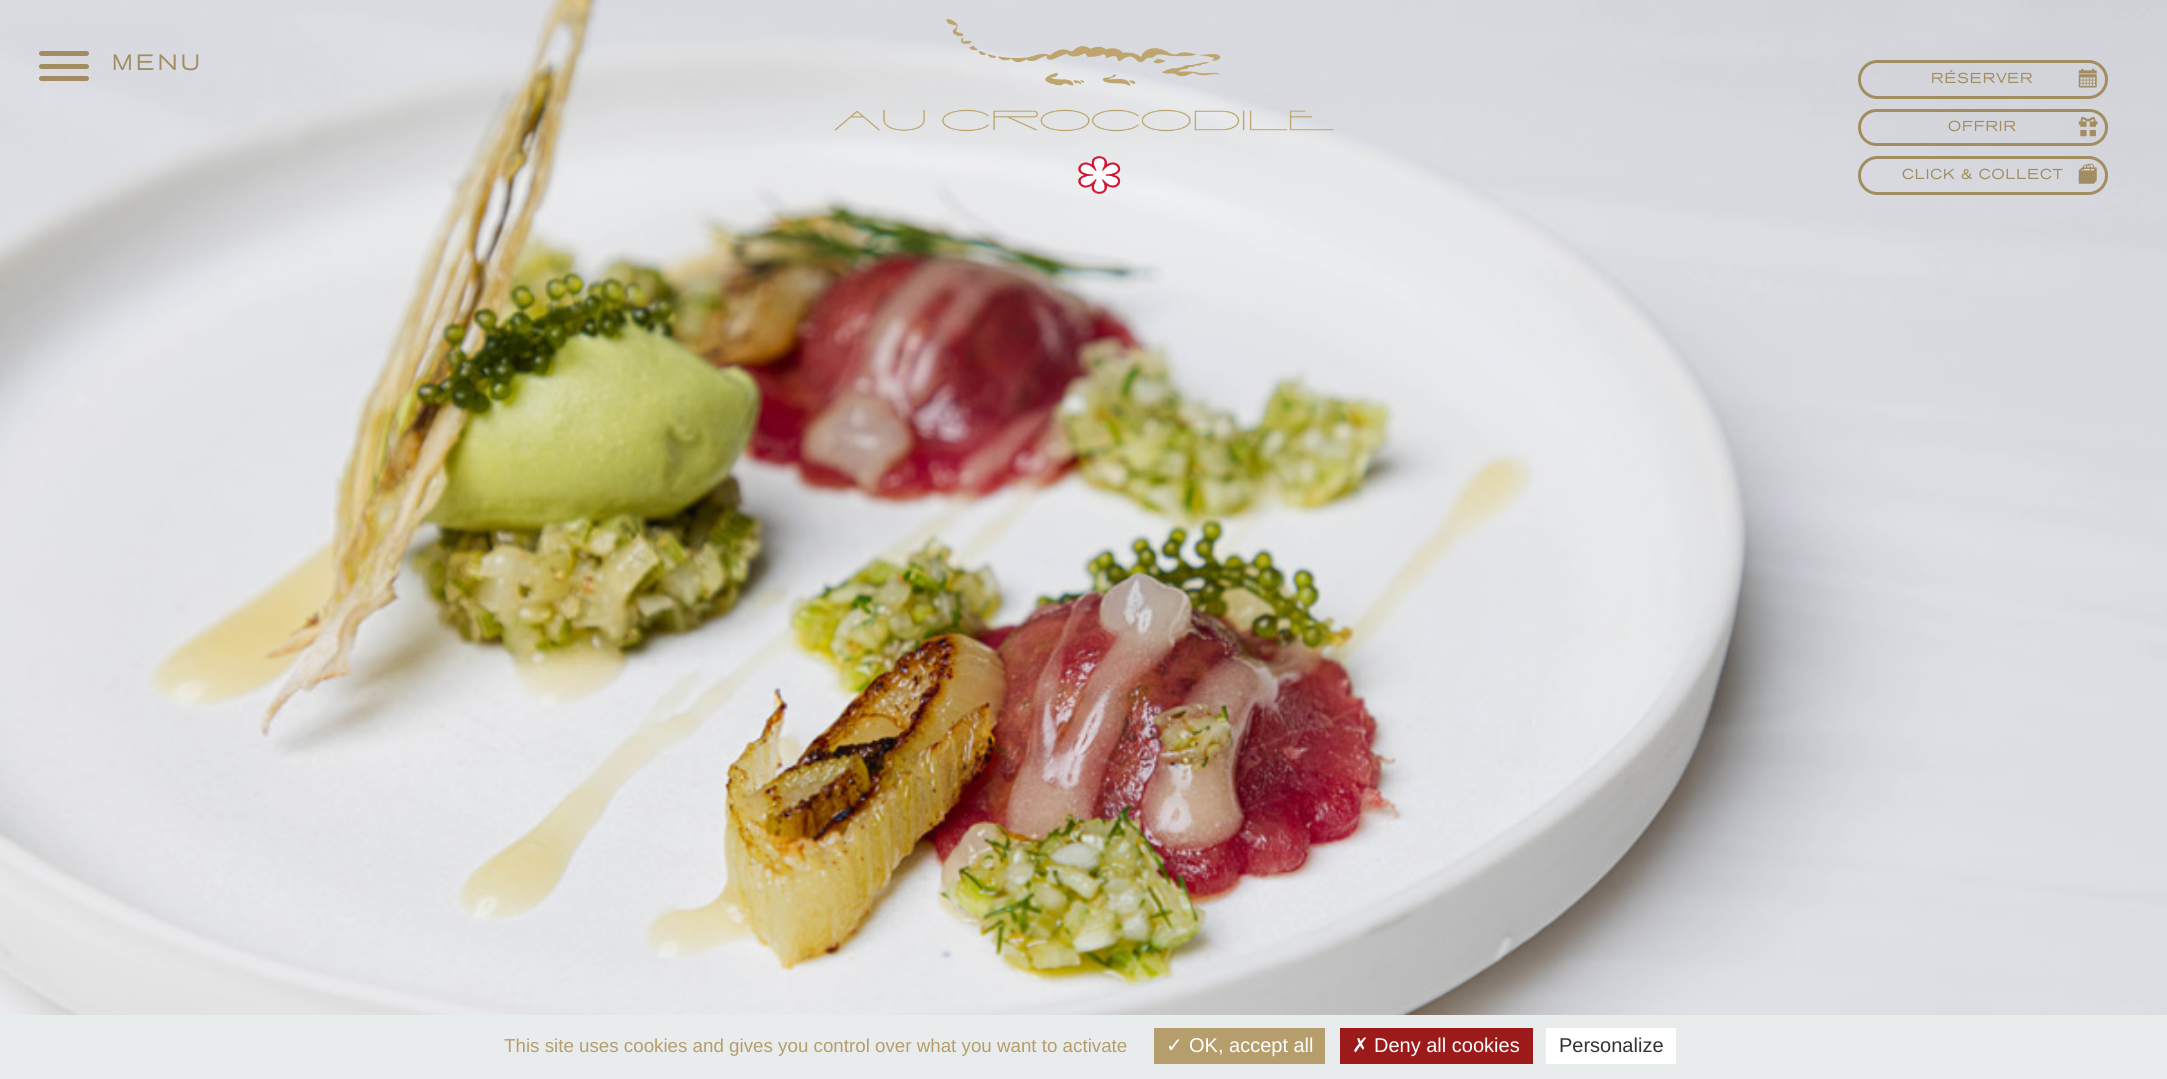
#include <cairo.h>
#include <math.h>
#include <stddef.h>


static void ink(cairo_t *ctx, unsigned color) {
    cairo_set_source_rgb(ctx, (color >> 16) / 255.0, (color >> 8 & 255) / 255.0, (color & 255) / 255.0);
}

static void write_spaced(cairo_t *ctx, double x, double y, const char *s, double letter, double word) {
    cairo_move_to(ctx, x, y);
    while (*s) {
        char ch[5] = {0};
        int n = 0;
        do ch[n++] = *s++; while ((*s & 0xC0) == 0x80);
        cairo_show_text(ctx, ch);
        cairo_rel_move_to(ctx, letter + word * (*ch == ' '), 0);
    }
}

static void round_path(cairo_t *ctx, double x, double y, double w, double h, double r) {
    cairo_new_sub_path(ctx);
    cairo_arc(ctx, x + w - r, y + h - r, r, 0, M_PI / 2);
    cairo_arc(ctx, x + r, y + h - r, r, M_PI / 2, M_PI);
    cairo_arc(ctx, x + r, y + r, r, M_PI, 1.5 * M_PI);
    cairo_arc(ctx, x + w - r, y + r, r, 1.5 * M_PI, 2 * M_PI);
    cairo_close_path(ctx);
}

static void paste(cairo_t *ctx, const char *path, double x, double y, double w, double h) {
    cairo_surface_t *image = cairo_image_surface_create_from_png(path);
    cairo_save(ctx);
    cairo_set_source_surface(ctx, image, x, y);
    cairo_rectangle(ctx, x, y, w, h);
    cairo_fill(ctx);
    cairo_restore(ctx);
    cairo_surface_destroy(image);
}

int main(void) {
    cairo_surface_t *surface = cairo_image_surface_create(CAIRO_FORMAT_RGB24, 2167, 1079);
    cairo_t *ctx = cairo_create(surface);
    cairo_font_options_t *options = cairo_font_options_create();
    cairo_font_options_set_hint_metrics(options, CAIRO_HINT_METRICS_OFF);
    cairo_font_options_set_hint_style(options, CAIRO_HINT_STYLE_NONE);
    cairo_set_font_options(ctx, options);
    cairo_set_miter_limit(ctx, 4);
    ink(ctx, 0xFFFFFF);
    cairo_paint(ctx);
    paste(ctx, "media/1.png", 0, 0, 2167, 1015);
    ink(ctx, 0xA18D61);
    round_path(ctx, 39, 51, 50, 5, 2.5);
    cairo_fill(ctx);
    round_path(ctx, 39, 64, 50, 5, 2.5);
    cairo_fill(ctx);
    round_path(ctx, 39, 76, 50, 5, 2.5);
    cairo_fill(ctx);
    cairo_select_font_face(ctx, "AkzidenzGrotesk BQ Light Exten", CAIRO_FONT_SLANT_NORMAL, CAIRO_FONT_WEIGHT_BOLD);
    cairo_set_font_size(ctx, 21.25);
    write_spaced(ctx, 112, 70, "MENU", 4, 0);
    paste(ctx, "media/2.png", 834, 19, 500, 175);
    round_path(ctx, 1859.5, 61.5, 247, 36, 18);
    cairo_set_line_width(ctx, 3);
    cairo_stroke(ctx);
    cairo_set_font_size(ctx, 13.75);
    write_spaced(ctx, 1931, 83, "RÉSERVER", 1.4, 0);
    paste(ctx, "media/3.png", 2078, 68, 19, 20);
    round_path(ctx, 1859.5, 110.5, 247, 34, 17);
    cairo_stroke(ctx);
    write_spaced(ctx, 1948, 131, "OFFRIR", 1.4, 0);
    paste(ctx, "media/4.png", 2078, 116, 20, 21);
    round_path(ctx, 1859.5, 157.5, 247, 36, 18);
    cairo_stroke(ctx);
    write_spaced(ctx, 1902, 179, "CLICK & COLLECT", 1.4, 0);
    paste(ctx, "media/5.png", 2078, 163, 19, 21);
    ink(ctx, 0xE9ECEC);
    cairo_rectangle(ctx, 0, 1015, 2167, 64);
    cairo_fill(ctx);
    cairo_select_font_face(ctx, "Liberation Sans", CAIRO_FONT_SLANT_NORMAL, CAIRO_FONT_WEIGHT_NORMAL);
    cairo_set_font_size(ctx, 18.75);
    ink(ctx, 0xB59E6C);
    cairo_move_to(ctx, 504, 1052);
    cairo_show_text(ctx, "This site uses cookies and gives you control over what you want to activate");
    cairo_rectangle(ctx, 1154, 1028, 171, 36);
    cairo_fill(ctx);
    cairo_select_font_face(ctx, "DejaVu Sans", CAIRO_FONT_SLANT_NORMAL, CAIRO_FONT_WEIGHT_NORMAL);
    cairo_set_font_size(ctx, 20);
    ink(ctx, 0xFFFFFF);
    cairo_move_to(ctx, 1166, 1052);
    cairo_show_text(ctx, "✓");
    cairo_select_font_face(ctx, "Liberation Sans", CAIRO_FONT_SLANT_NORMAL, CAIRO_FONT_WEIGHT_NORMAL);
    cairo_move_to(ctx, 1189, 1052);
    cairo_show_text(ctx, "OK, accept all");
    ink(ctx, 0x9C1A1A);
    cairo_rectangle(ctx, 1340, 1028, 193, 36);
    cairo_fill(ctx);
    cairo_select_font_face(ctx, "DejaVu Sans", CAIRO_FONT_SLANT_NORMAL, CAIRO_FONT_WEIGHT_NORMAL);
    ink(ctx, 0xFFFFFF);
    cairo_move_to(ctx, 1352, 1052);
    cairo_show_text(ctx, "✗");
    cairo_select_font_face(ctx, "Liberation Sans", CAIRO_FONT_SLANT_NORMAL, CAIRO_FONT_WEIGHT_NORMAL);
    cairo_move_to(ctx, 1374, 1052);
    cairo_show_text(ctx, "Deny all cookies");
    cairo_rectangle(ctx, 1546, 1028, 130, 36);
    cairo_fill(ctx);
    ink(ctx, 0x333333);
    cairo_move_to(ctx, 1559, 1052);
    cairo_show_text(ctx, "Personalize");
    cairo_surface_write_to_png(surface, "image.png");
    cairo_font_options_destroy(options);
    cairo_destroy(ctx);
    cairo_surface_destroy(surface);
    return 0;
}
